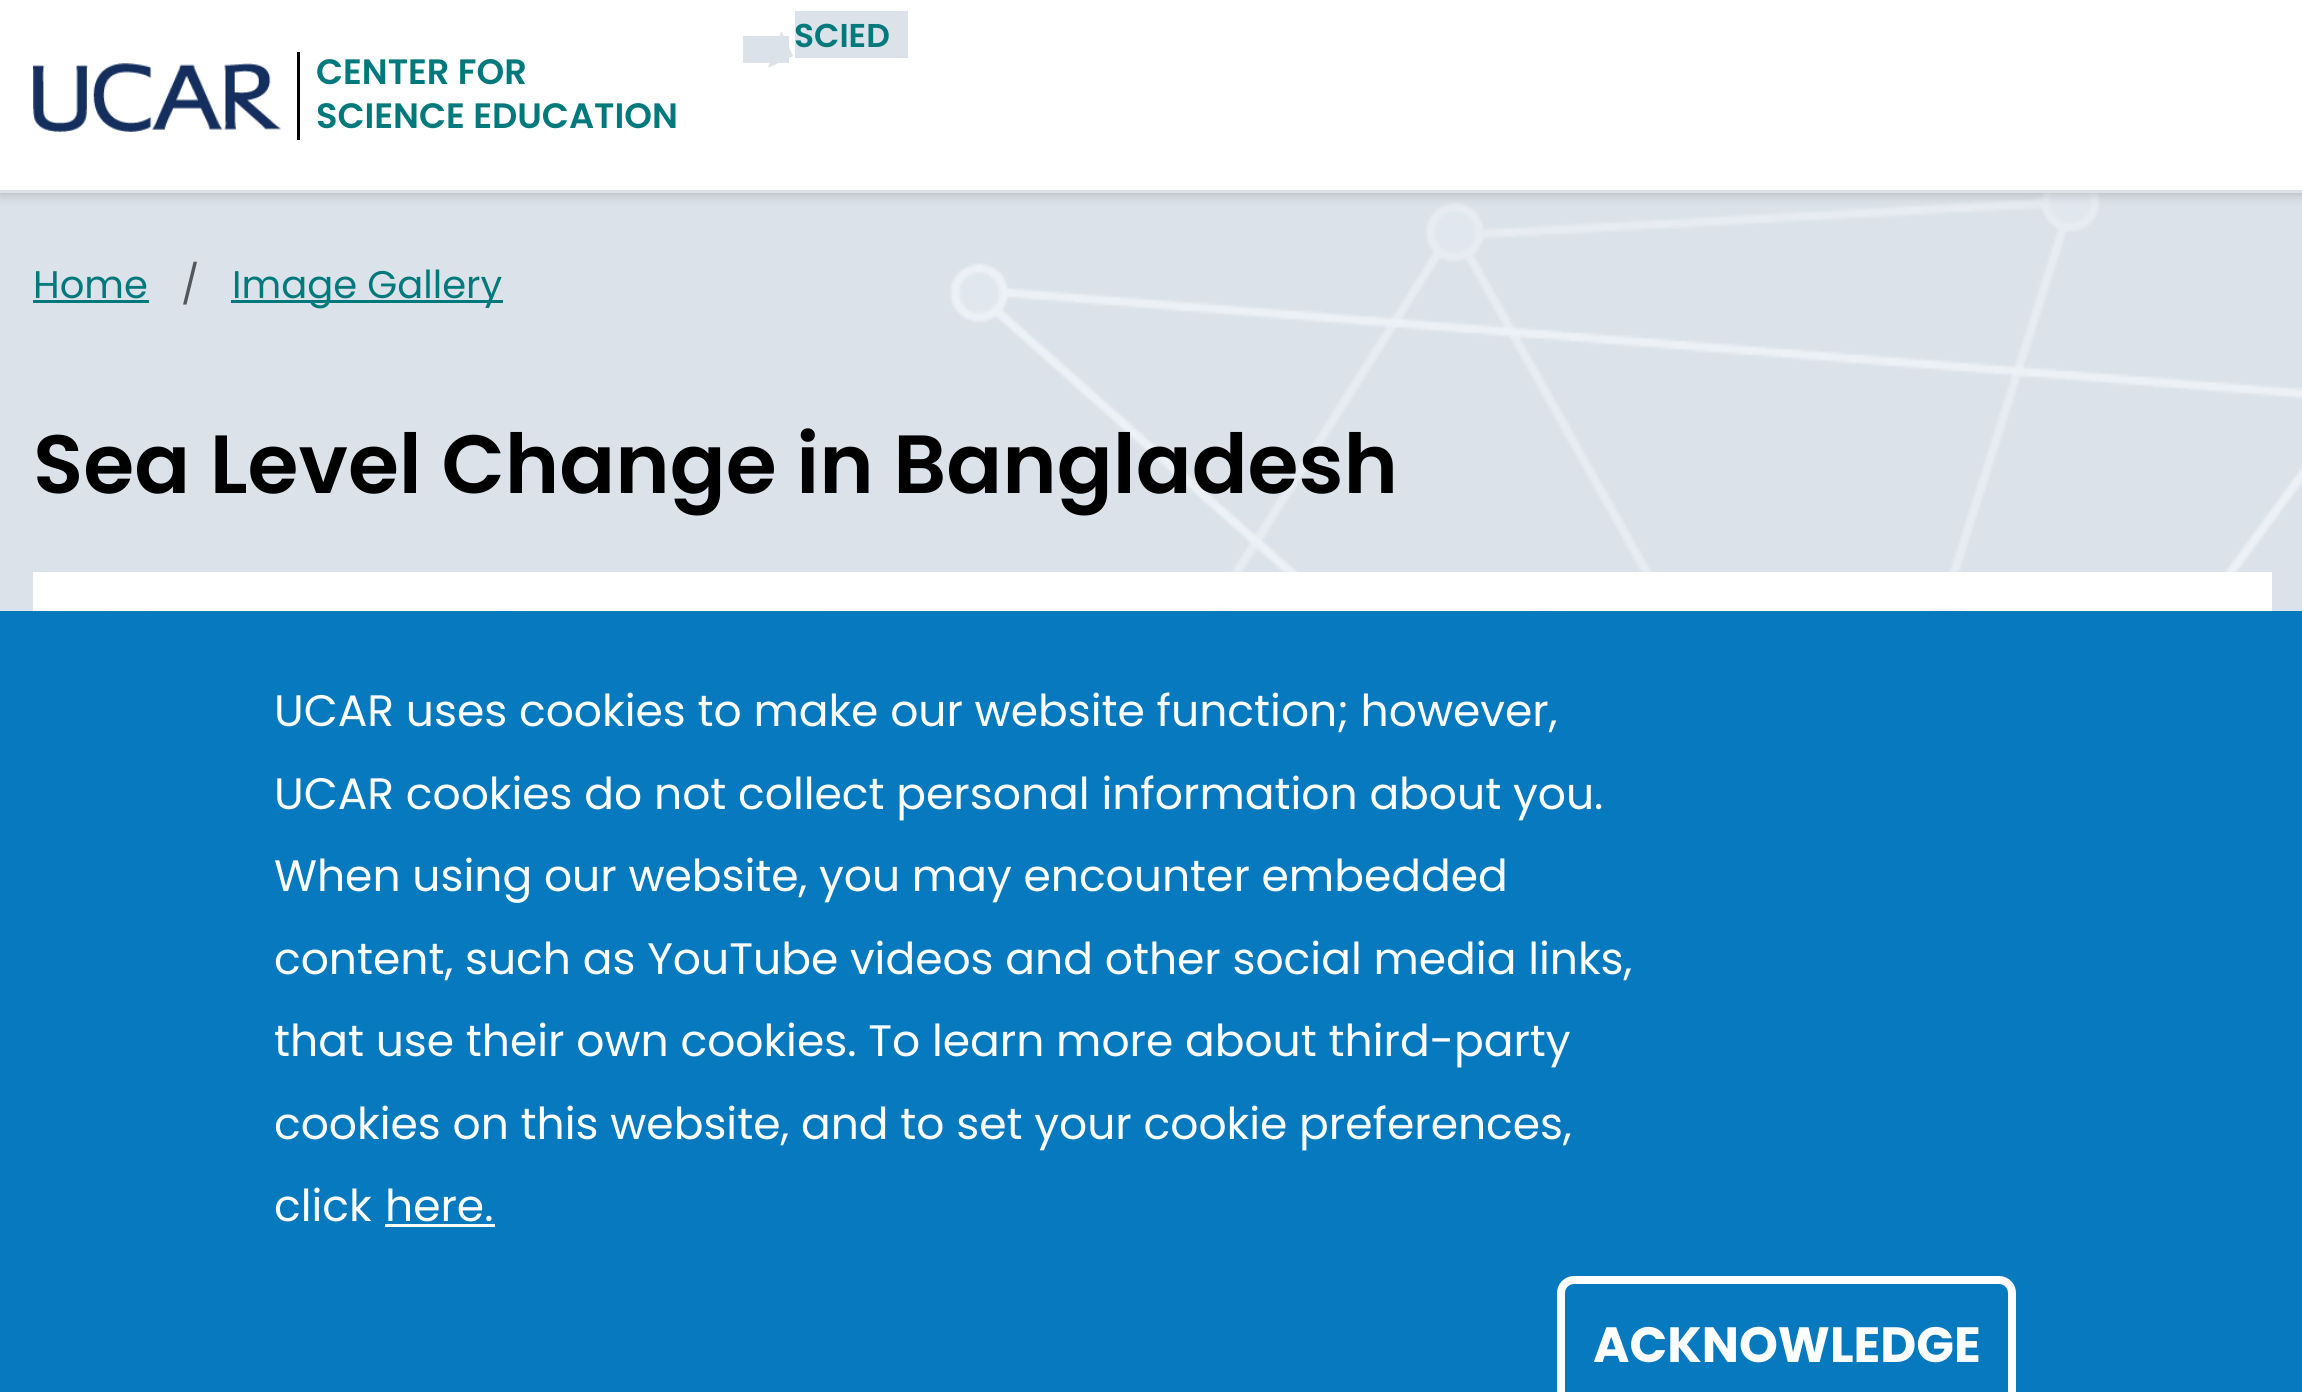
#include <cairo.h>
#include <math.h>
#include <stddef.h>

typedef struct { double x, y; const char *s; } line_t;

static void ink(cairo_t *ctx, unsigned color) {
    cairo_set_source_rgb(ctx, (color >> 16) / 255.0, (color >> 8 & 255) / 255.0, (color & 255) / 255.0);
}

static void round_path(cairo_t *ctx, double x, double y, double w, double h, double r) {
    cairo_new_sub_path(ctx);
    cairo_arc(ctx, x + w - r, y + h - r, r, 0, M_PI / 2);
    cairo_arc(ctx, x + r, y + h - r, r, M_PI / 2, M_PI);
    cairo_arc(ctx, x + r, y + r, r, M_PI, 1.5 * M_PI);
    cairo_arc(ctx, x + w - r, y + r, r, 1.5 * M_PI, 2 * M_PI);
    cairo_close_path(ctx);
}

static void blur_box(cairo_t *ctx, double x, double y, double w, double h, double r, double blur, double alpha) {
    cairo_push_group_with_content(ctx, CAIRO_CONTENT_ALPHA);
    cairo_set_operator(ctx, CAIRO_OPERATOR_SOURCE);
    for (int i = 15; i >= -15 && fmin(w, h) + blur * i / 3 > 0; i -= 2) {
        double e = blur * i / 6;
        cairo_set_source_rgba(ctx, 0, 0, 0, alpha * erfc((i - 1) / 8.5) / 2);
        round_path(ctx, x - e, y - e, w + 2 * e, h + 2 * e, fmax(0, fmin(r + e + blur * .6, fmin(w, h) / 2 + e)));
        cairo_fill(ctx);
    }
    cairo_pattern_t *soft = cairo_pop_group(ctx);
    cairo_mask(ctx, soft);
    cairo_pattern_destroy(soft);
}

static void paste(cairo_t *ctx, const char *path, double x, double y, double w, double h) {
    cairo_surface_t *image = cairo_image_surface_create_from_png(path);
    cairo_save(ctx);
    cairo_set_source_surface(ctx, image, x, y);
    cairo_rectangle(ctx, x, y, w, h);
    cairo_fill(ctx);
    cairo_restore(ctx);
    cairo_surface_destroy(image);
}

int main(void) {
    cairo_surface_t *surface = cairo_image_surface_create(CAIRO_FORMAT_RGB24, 2302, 1392);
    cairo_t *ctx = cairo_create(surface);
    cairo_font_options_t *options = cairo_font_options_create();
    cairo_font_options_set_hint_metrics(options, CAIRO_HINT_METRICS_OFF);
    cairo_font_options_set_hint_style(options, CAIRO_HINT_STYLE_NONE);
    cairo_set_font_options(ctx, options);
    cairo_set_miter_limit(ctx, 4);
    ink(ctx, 0xDBE2E9);
    cairo_paint(ctx);
    paste(ctx, "media/1.png", 950, 193, 1352, 379);
    ink(ctx, 0xFFFFFF);
    cairo_rectangle(ctx, 0, 0, 2302, 190);
    cairo_fill(ctx);
    cairo_save(ctx);
    cairo_set_fill_rule(ctx, CAIRO_FILL_RULE_EVEN_ODD);
    cairo_new_path(ctx);
    cairo_move_to(ctx, 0, 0);
    cairo_line_to(ctx, 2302, 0);
    cairo_line_to(ctx, 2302, 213);
    cairo_line_to(ctx, 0, 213);
    cairo_close_path(ctx);
    cairo_move_to(ctx, 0, 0);
    cairo_line_to(ctx, 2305, 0);
    cairo_line_to(ctx, 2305, 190);
    cairo_line_to(ctx, 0, 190);
    cairo_close_path(ctx);
    cairo_clip(ctx);
    ink(ctx, 0x000000);
    blur_box(ctx, 0, 6, 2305, 189, 0, 5.5, 0.18);
    cairo_restore(ctx);
    ink(ctx, 0xDBE2E9);
    cairo_rectangle(ctx, 743, 36, 46, 27);
    cairo_fill(ctx);
    cairo_rectangle(ctx, 795, 11, 113, 47);
    cairo_fill(ctx);
    cairo_new_path(ctx);
    cairo_move_to(ctx, 781.5, 31);
    cairo_line_to(ctx, 793, 56);
    cairo_line_to(ctx, 768, 68);
    cairo_close_path(ctx);
    cairo_fill(ctx);
    cairo_select_font_face(ctx, "Poppins SemiBold", CAIRO_FONT_SLANT_NORMAL, CAIRO_FONT_WEIGHT_NORMAL);
    cairo_set_font_size(ctx, 33);
    ink(ctx, 0x00797C);
    cairo_move_to(ctx, 794, 47);
    cairo_show_text(ctx, "SCIED");
    paste(ctx, "media/2.png", 33, 63, 248, 69);
    ink(ctx, 0x000000);
    cairo_rectangle(ctx, 297, 52, 3, 88);
    cairo_fill(ctx);
    cairo_set_font_size(ctx, 35.25);
    ink(ctx, 0x00797C);
    cairo_move_to(ctx, 316, 84);
    cairo_show_text(ctx, "CENTER FOR");
    cairo_move_to(ctx, 316, 128);
    cairo_show_text(ctx, "SCIENCE EDUCATION");
    ink(ctx, 0xDEE2E6);
    cairo_rectangle(ctx, 0, 190, 2302, 3);
    cairo_fill(ctx);
    cairo_select_font_face(ctx, "Poppins", CAIRO_FONT_SLANT_NORMAL, CAIRO_FONT_WEIGHT_NORMAL);
    cairo_set_font_size(ctx, 38.5);
    ink(ctx, 0x00797C);
    cairo_move_to(ctx, 33, 298);
    cairo_show_text(ctx, "Home");
    cairo_rectangle(ctx, 33, 300, 116, 3);
    cairo_fill(ctx);
    ink(ctx, 0x53565A);
    cairo_move_to(ctx, 181, 298);
    cairo_show_text(ctx, "/");
    ink(ctx, 0x00797C);
    cairo_rectangle(ctx, 231, 300, 272, 3);
    cairo_fill(ctx);
    cairo_move_to(ctx, 232, 298);
    cairo_show_text(ctx, "Image Gallery");
    cairo_select_font_face(ctx, "Poppins SemiBold", CAIRO_FONT_SLANT_NORMAL, CAIRO_FONT_WEIGHT_NORMAL);
    cairo_set_font_size(ctx, 82.5);
    ink(ctx, 0x000000);
    cairo_move_to(ctx, 33, 493);
    cairo_show_text(ctx, "Sea Level Change in Bangladesh");
    ink(ctx, 0xFFFFFF);
    cairo_rectangle(ctx, 33, 572, 2239, 39);
    cairo_fill(ctx);
    paste(ctx, "media/3.png", 70, 607, 2168, 4);
    ink(ctx, 0x0779BF);
    cairo_rectangle(ctx, 0, 611, 2302, 781);
    cairo_fill(ctx);
    cairo_select_font_face(ctx, "Poppins", CAIRO_FONT_SLANT_NORMAL, CAIRO_FONT_WEIGHT_NORMAL);
    cairo_set_font_size(ctx, 44);
    ink(ctx, 0xFFFFFF);
    {
        static const line_t items[] = {
            {274, 726, "UCAR uses cookies to make our website function; however,"},
            {274, 809, "UCAR cookies do not collect personal information about you."},
            {274, 891, "When using our website, you may encounter embedded"},
            {274, 974, "content, such as YouTube videos and other social media links,"},
            {274, 1056, "that use their own cookies. To learn more about third-party"},
            {274, 1139, "cookies on this website, and to set your cookie preferences,"},
            {274, 1221, "click"},
            {385, 1221, "here."},
        };
        for (size_t i = 0; i < sizeof items / sizeof *items; i++) {
            cairo_move_to(ctx, items[i].x, items[i].y);
            cairo_show_text(ctx, items[i].s);
        }
    }
    cairo_rectangle(ctx, 385, 1224, 110, 3);
    cairo_fill(ctx);
    round_path(ctx, 1561, 1280, 451, 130, 13);
    cairo_set_line_width(ctx, 8);
    cairo_stroke(ctx);
    cairo_select_font_face(ctx, "Poppins", CAIRO_FONT_SLANT_NORMAL, CAIRO_FONT_WEIGHT_BOLD);
    cairo_set_font_size(ctx, 49.5);
    cairo_move_to(ctx, 1593, 1362);
    cairo_show_text(ctx, "ACKNOWLEDGE");
    cairo_surface_write_to_png(surface, "image.png");
    cairo_font_options_destroy(options);
    cairo_destroy(ctx);
    cairo_surface_destroy(surface);
    return 0;
}
